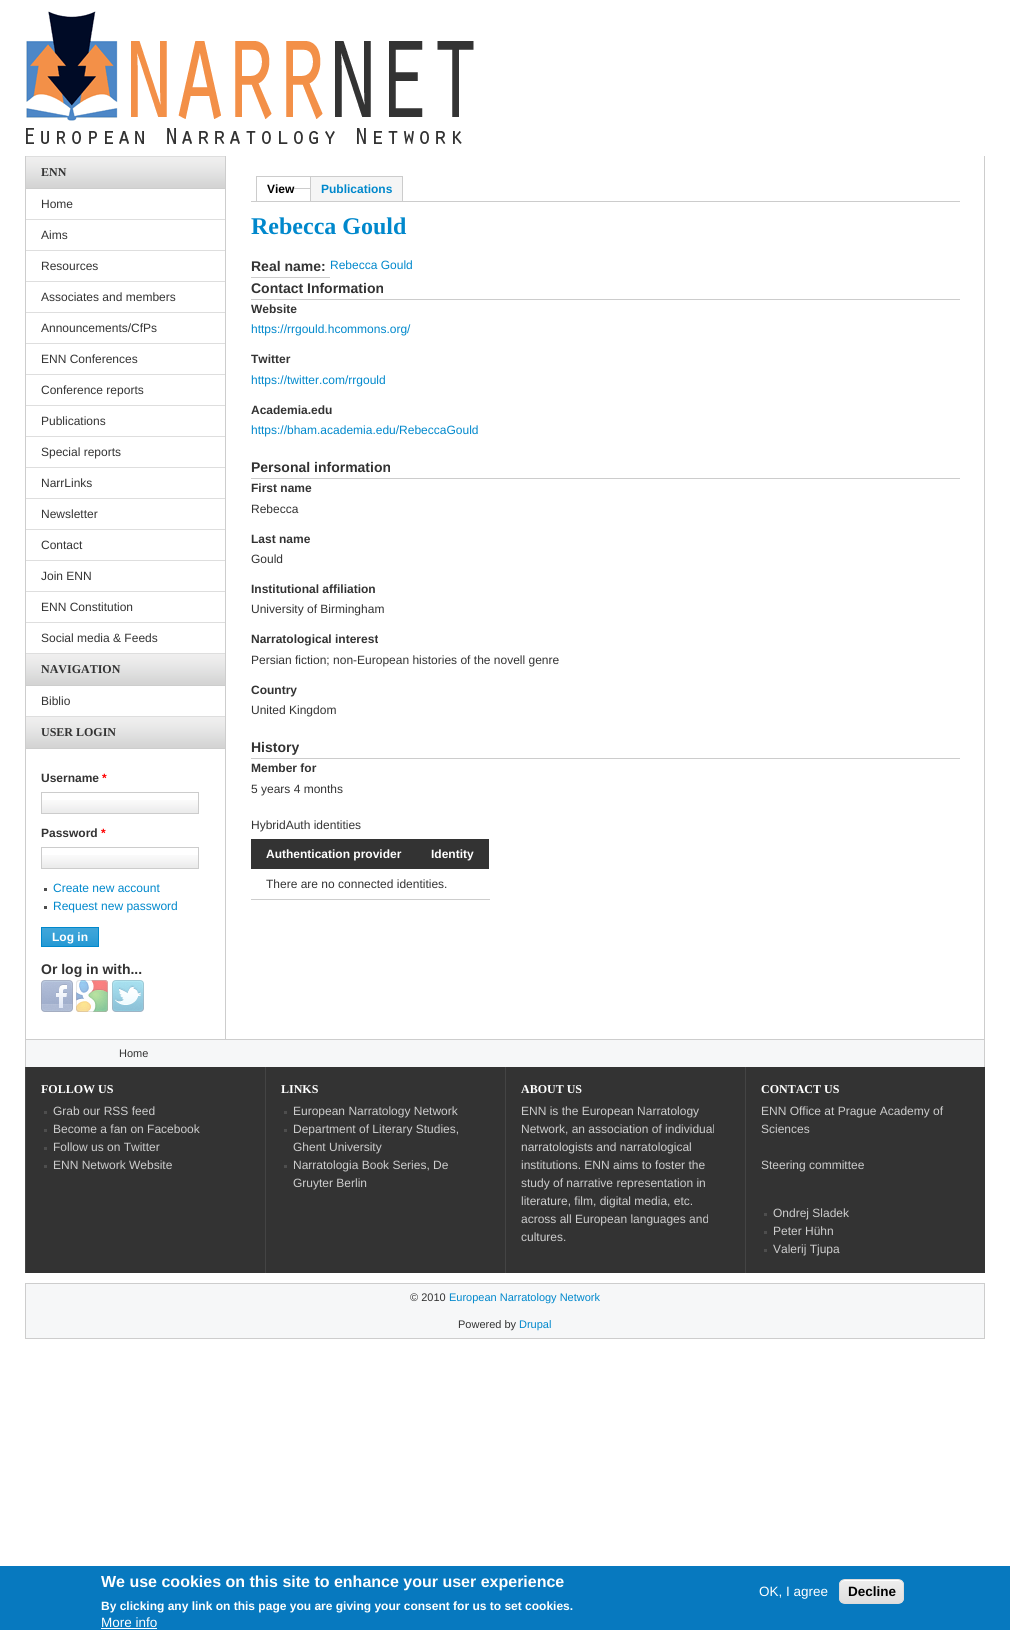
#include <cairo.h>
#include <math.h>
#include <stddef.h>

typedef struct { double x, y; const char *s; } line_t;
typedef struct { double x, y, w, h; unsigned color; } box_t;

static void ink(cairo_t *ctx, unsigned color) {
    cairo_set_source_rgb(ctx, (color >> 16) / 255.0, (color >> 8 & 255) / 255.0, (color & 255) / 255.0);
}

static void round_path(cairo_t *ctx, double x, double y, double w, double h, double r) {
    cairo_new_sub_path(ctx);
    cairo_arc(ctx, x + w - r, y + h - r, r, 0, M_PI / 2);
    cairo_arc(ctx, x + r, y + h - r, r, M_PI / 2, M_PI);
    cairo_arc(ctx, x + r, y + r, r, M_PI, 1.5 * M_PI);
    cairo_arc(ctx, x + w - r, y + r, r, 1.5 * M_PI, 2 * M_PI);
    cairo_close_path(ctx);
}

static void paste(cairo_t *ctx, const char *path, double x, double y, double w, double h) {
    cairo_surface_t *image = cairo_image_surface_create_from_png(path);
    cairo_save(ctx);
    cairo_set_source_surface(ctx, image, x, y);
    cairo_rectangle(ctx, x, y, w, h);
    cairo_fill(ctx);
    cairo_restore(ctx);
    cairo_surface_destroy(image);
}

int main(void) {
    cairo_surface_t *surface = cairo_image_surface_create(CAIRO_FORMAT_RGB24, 1010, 1630);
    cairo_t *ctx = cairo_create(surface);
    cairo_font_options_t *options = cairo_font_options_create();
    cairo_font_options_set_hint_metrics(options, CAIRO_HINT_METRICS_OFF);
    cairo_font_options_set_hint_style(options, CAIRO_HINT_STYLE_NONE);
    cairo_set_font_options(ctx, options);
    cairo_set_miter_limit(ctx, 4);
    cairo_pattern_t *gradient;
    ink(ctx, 0xFFFFFF);
    cairo_paint(ctx);
    paste(ctx, "media/1.png", 26, 11, 448, 133);
    ink(ctx, 0xDEDEDE);
    cairo_rectangle(ctx, 26, 156, 199, 1);
    cairo_fill(ctx);
    paste(ctx, "media/2.png", 26, 157, 199, 31);
    ink(ctx, 0xCDCDCD);
    cairo_rectangle(ctx, 26, 188, 199, 1);
    cairo_fill(ctx);
    cairo_select_font_face(ctx, "Liberation Serif", CAIRO_FONT_SLANT_NORMAL, CAIRO_FONT_WEIGHT_BOLD);
    cairo_set_font_size(ctx, 12);
    ink(ctx, 0x333333);
    cairo_move_to(ctx, 41, 176);
    cairo_show_text(ctx, "ENN");
    ink(ctx, 0xDEDEDE);
    cairo_rectangle(ctx, 26, 219, 199, 1);
    cairo_fill(ctx);
    cairo_select_font_face(ctx, "Liberation Sans", CAIRO_FONT_SLANT_NORMAL, CAIRO_FONT_WEIGHT_NORMAL);
    ink(ctx, 0x333333);
    cairo_move_to(ctx, 41, 208);
    cairo_show_text(ctx, "Home");
    ink(ctx, 0xDEDEDE);
    cairo_rectangle(ctx, 26, 250, 199, 1);
    cairo_fill(ctx);
    ink(ctx, 0x333333);
    cairo_move_to(ctx, 41, 239);
    cairo_show_text(ctx, "Aims");
    ink(ctx, 0xDEDEDE);
    cairo_rectangle(ctx, 26, 281, 199, 1);
    cairo_fill(ctx);
    ink(ctx, 0x333333);
    cairo_move_to(ctx, 41, 270);
    cairo_show_text(ctx, "Resources");
    ink(ctx, 0xDEDEDE);
    cairo_rectangle(ctx, 26, 312, 199, 1);
    cairo_fill(ctx);
    ink(ctx, 0x333333);
    cairo_move_to(ctx, 41, 301);
    cairo_show_text(ctx, "Associates and members");
    ink(ctx, 0xDEDEDE);
    cairo_rectangle(ctx, 26, 343, 199, 1);
    cairo_fill(ctx);
    ink(ctx, 0x333333);
    cairo_move_to(ctx, 41, 332);
    cairo_show_text(ctx, "Announcements/CfPs");
    ink(ctx, 0xDEDEDE);
    cairo_rectangle(ctx, 26, 374, 199, 1);
    cairo_fill(ctx);
    ink(ctx, 0x333333);
    cairo_move_to(ctx, 41, 363);
    cairo_show_text(ctx, "ENN Conferences");
    ink(ctx, 0xDEDEDE);
    cairo_rectangle(ctx, 26, 405, 199, 1);
    cairo_fill(ctx);
    ink(ctx, 0x333333);
    cairo_move_to(ctx, 41, 394);
    cairo_show_text(ctx, "Conference reports");
    ink(ctx, 0xDEDEDE);
    cairo_rectangle(ctx, 26, 436, 199, 1);
    cairo_fill(ctx);
    ink(ctx, 0x333333);
    cairo_move_to(ctx, 41, 425);
    cairo_show_text(ctx, "Publications");
    ink(ctx, 0xDEDEDE);
    cairo_rectangle(ctx, 26, 467, 199, 1);
    cairo_fill(ctx);
    ink(ctx, 0x333333);
    cairo_move_to(ctx, 41, 456);
    cairo_show_text(ctx, "Special reports");
    ink(ctx, 0xDEDEDE);
    cairo_rectangle(ctx, 26, 498, 199, 1);
    cairo_fill(ctx);
    ink(ctx, 0x333333);
    cairo_move_to(ctx, 41, 487);
    cairo_show_text(ctx, "NarrLinks");
    ink(ctx, 0xDEDEDE);
    cairo_rectangle(ctx, 26, 529, 199, 1);
    cairo_fill(ctx);
    ink(ctx, 0x333333);
    cairo_move_to(ctx, 41, 518);
    cairo_show_text(ctx, "Newsletter");
    ink(ctx, 0xDEDEDE);
    cairo_rectangle(ctx, 26, 560, 199, 1);
    cairo_fill(ctx);
    ink(ctx, 0x333333);
    cairo_move_to(ctx, 41, 549);
    cairo_show_text(ctx, "Contact");
    ink(ctx, 0xDEDEDE);
    cairo_rectangle(ctx, 26, 591, 199, 1);
    cairo_fill(ctx);
    ink(ctx, 0x333333);
    cairo_move_to(ctx, 41, 580);
    cairo_show_text(ctx, "Join ENN");
    ink(ctx, 0xDEDEDE);
    cairo_rectangle(ctx, 26, 622, 199, 1);
    cairo_fill(ctx);
    ink(ctx, 0x333333);
    cairo_move_to(ctx, 41, 611);
    cairo_show_text(ctx, "ENN Constitution");
    cairo_move_to(ctx, 41, 642);
    cairo_show_text(ctx, "Social media & Feeds");
    ink(ctx, 0xDEDEDE);
    cairo_rectangle(ctx, 26, 653, 199, 1);
    cairo_fill(ctx);
    paste(ctx, "media/2.png", 26, 654, 199, 31);
    ink(ctx, 0xCDCDCD);
    cairo_rectangle(ctx, 26, 685, 199, 1);
    cairo_fill(ctx);
    cairo_select_font_face(ctx, "Liberation Serif", CAIRO_FONT_SLANT_NORMAL, CAIRO_FONT_WEIGHT_BOLD);
    ink(ctx, 0x333333);
    cairo_move_to(ctx, 41, 673);
    cairo_show_text(ctx, "NAVIGATION");
    cairo_select_font_face(ctx, "Liberation Sans", CAIRO_FONT_SLANT_NORMAL, CAIRO_FONT_WEIGHT_NORMAL);
    cairo_move_to(ctx, 41, 705);
    cairo_show_text(ctx, "Biblio");
    ink(ctx, 0xDEDEDE);
    cairo_rectangle(ctx, 26, 716, 199, 1);
    cairo_fill(ctx);
    paste(ctx, "media/2.png", 26, 717, 199, 31);
    ink(ctx, 0xCDCDCD);
    cairo_rectangle(ctx, 26, 748, 199, 1);
    cairo_fill(ctx);
    cairo_select_font_face(ctx, "Liberation Serif", CAIRO_FONT_SLANT_NORMAL, CAIRO_FONT_WEIGHT_BOLD);
    ink(ctx, 0x333333);
    cairo_move_to(ctx, 41, 736);
    cairo_show_text(ctx, "USER LOGIN");
    cairo_select_font_face(ctx, "Liberation Sans", CAIRO_FONT_SLANT_NORMAL, CAIRO_FONT_WEIGHT_BOLD);
    cairo_move_to(ctx, 41, 782);
    cairo_show_text(ctx, "Username");
    ink(ctx, 0xFF0000);
    cairo_move_to(ctx, 102, 782);
    cairo_show_text(ctx, "*");
    paste(ctx, "media/3.png", 42, 800, 156, 13);
    cairo_rectangle(ctx, 41.5, 792.5, 157, 21);
    ink(ctx, 0xCCCCCC);
    cairo_set_line_width(ctx, 1);
    cairo_stroke(ctx);
    ink(ctx, 0x333333);
    cairo_move_to(ctx, 41, 837);
    cairo_show_text(ctx, "Password");
    ink(ctx, 0xFF0000);
    cairo_move_to(ctx, 101, 837);
    cairo_show_text(ctx, "*");
    paste(ctx, "media/3.png", 42, 855, 156, 13);
    cairo_rectangle(ctx, 41.5, 847.5, 157, 21);
    ink(ctx, 0xCCCCCC);
    cairo_stroke(ctx);
    ink(ctx, 0x4E4E4E);
    cairo_rectangle(ctx, 44, 888, 3, 3);
    cairo_fill(ctx);
    cairo_select_font_face(ctx, "Liberation Sans", CAIRO_FONT_SLANT_NORMAL, CAIRO_FONT_WEIGHT_NORMAL);
    ink(ctx, 0x0088CC);
    cairo_move_to(ctx, 53, 892);
    cairo_show_text(ctx, "Create new account");
    ink(ctx, 0x4E4E4E);
    cairo_rectangle(ctx, 44, 906, 3, 3);
    cairo_fill(ctx);
    ink(ctx, 0x0088CC);
    cairo_move_to(ctx, 53, 910);
    cairo_show_text(ctx, "Request new password");
    paste(ctx, "media/4.png", 42, 928, 56, 18);
    cairo_rectangle(ctx, 41.5, 927.5, 57, 19);
    cairo_stroke(ctx);
    cairo_select_font_face(ctx, "Liberation Sans", CAIRO_FONT_SLANT_NORMAL, CAIRO_FONT_WEIGHT_BOLD);
    ink(ctx, 0xFFFFFF);
    cairo_move_to(ctx, 52, 941);
    cairo_show_text(ctx, "Log in");
    cairo_set_font_size(ctx, 14);
    ink(ctx, 0x333333);
    cairo_move_to(ctx, 41, 974);
    cairo_show_text(ctx, "Or log in with...");
    paste(ctx, "media/5.png", 41, 980, 32, 32);
    paste(ctx, "media/6.png", 76, 980, 32, 32);
    paste(ctx, "media/7.png", 112, 980, 32, 32);
    {
        static const box_t items[] = {
            {225, 156, 1, 883, 0xCDCDCD},
            {251, 201, 709, 1, 0xCCCCCC},
            {294, 188, 16, 1, 0xCCCCCC},
        };
        for (size_t i = 0; i < sizeof items / sizeof *items; i++) {
            ink(ctx, items[i].color);
            cairo_rectangle(ctx, items[i].x, items[i].y, items[i].w, items[i].h);
            cairo_fill(ctx);
        }
    }
    cairo_set_font_size(ctx, 12);
    ink(ctx, 0x000000);
    cairo_move_to(ctx, 267, 193);
    cairo_show_text(ctx, "View");
    {
        static const box_t items[] = {
            {256, 176, 147, 1, 0xCCCCCC},
            {256, 176, 1, 26, 0xCCCCCC},
            {311, 177, 91, 24, 0xF5F5F5},
        };
        for (size_t i = 0; i < sizeof items / sizeof *items; i++) {
            ink(ctx, items[i].color);
            cairo_rectangle(ctx, items[i].x, items[i].y, items[i].w, items[i].h);
            cairo_fill(ctx);
        }
    }
    ink(ctx, 0x0088CC);
    cairo_move_to(ctx, 321, 193);
    cairo_show_text(ctx, "Publications");
    ink(ctx, 0xCCCCCC);
    cairo_rectangle(ctx, 402, 176, 1, 25);
    cairo_fill(ctx);
    cairo_rectangle(ctx, 310, 176, 1, 25);
    cairo_fill(ctx);
    cairo_select_font_face(ctx, "Liberation Serif", CAIRO_FONT_SLANT_NORMAL, CAIRO_FONT_WEIGHT_BOLD);
    cairo_set_font_size(ctx, 24);
    ink(ctx, 0x0088CC);
    cairo_move_to(ctx, 251, 234);
    cairo_show_text(ctx, "Rebecca Gould");
    ink(ctx, 0xCCCCCC);
    cairo_rectangle(ctx, 251, 277, 79, 1);
    cairo_fill(ctx);
    cairo_select_font_face(ctx, "Liberation Sans", CAIRO_FONT_SLANT_NORMAL, CAIRO_FONT_WEIGHT_BOLD);
    cairo_set_font_size(ctx, 14);
    ink(ctx, 0x333333);
    cairo_move_to(ctx, 251, 271);
    cairo_show_text(ctx, "Real name:");
    cairo_select_font_face(ctx, "Liberation Sans", CAIRO_FONT_SLANT_NORMAL, CAIRO_FONT_WEIGHT_NORMAL);
    cairo_set_font_size(ctx, 12);
    ink(ctx, 0x0088CC);
    cairo_move_to(ctx, 330, 269);
    cairo_show_text(ctx, "Rebecca Gould");
    ink(ctx, 0xCCCCCC);
    cairo_rectangle(ctx, 251, 299, 709, 1);
    cairo_fill(ctx);
    cairo_select_font_face(ctx, "Liberation Sans", CAIRO_FONT_SLANT_NORMAL, CAIRO_FONT_WEIGHT_BOLD);
    cairo_set_font_size(ctx, 14);
    ink(ctx, 0x333333);
    cairo_move_to(ctx, 251, 293);
    cairo_show_text(ctx, "Contact Information");
    cairo_set_font_size(ctx, 12);
    cairo_move_to(ctx, 251, 313);
    cairo_show_text(ctx, "Website");
    cairo_select_font_face(ctx, "Liberation Sans", CAIRO_FONT_SLANT_NORMAL, CAIRO_FONT_WEIGHT_NORMAL);
    ink(ctx, 0x0088CC);
    cairo_move_to(ctx, 251, 333);
    cairo_show_text(ctx, "https://rrgould.hcommons.org/");
    cairo_select_font_face(ctx, "Liberation Sans", CAIRO_FONT_SLANT_NORMAL, CAIRO_FONT_WEIGHT_BOLD);
    ink(ctx, 0x333333);
    cairo_move_to(ctx, 251, 363);
    cairo_show_text(ctx, "Twitter");
    cairo_select_font_face(ctx, "Liberation Sans", CAIRO_FONT_SLANT_NORMAL, CAIRO_FONT_WEIGHT_NORMAL);
    ink(ctx, 0x0088CC);
    cairo_move_to(ctx, 251, 384);
    cairo_show_text(ctx, "https://twitter.com/rrgould");
    cairo_select_font_face(ctx, "Liberation Sans", CAIRO_FONT_SLANT_NORMAL, CAIRO_FONT_WEIGHT_BOLD);
    ink(ctx, 0x333333);
    cairo_move_to(ctx, 251, 414);
    cairo_show_text(ctx, "Academia.edu");
    cairo_select_font_face(ctx, "Liberation Sans", CAIRO_FONT_SLANT_NORMAL, CAIRO_FONT_WEIGHT_NORMAL);
    ink(ctx, 0x0088CC);
    cairo_move_to(ctx, 251, 434);
    cairo_show_text(ctx, "https://bham.academia.edu/RebeccaGould");
    ink(ctx, 0xCCCCCC);
    cairo_rectangle(ctx, 251, 478, 709, 1);
    cairo_fill(ctx);
    cairo_select_font_face(ctx, "Liberation Sans", CAIRO_FONT_SLANT_NORMAL, CAIRO_FONT_WEIGHT_BOLD);
    cairo_set_font_size(ctx, 14);
    ink(ctx, 0x333333);
    cairo_move_to(ctx, 251, 472);
    cairo_show_text(ctx, "Personal information");
    cairo_set_font_size(ctx, 12);
    cairo_move_to(ctx, 251, 492);
    cairo_show_text(ctx, "First name");
    cairo_select_font_face(ctx, "Liberation Sans", CAIRO_FONT_SLANT_NORMAL, CAIRO_FONT_WEIGHT_NORMAL);
    cairo_move_to(ctx, 251, 513);
    cairo_show_text(ctx, "Rebecca");
    cairo_select_font_face(ctx, "Liberation Sans", CAIRO_FONT_SLANT_NORMAL, CAIRO_FONT_WEIGHT_BOLD);
    cairo_move_to(ctx, 251, 543);
    cairo_show_text(ctx, "Last name");
    cairo_select_font_face(ctx, "Liberation Sans", CAIRO_FONT_SLANT_NORMAL, CAIRO_FONT_WEIGHT_NORMAL);
    cairo_move_to(ctx, 251, 563);
    cairo_show_text(ctx, "Gould");
    cairo_select_font_face(ctx, "Liberation Sans", CAIRO_FONT_SLANT_NORMAL, CAIRO_FONT_WEIGHT_BOLD);
    cairo_move_to(ctx, 251, 593);
    cairo_show_text(ctx, "Institutional affiliation");
    cairo_select_font_face(ctx, "Liberation Sans", CAIRO_FONT_SLANT_NORMAL, CAIRO_FONT_WEIGHT_NORMAL);
    cairo_move_to(ctx, 251, 613);
    cairo_show_text(ctx, "University of Birmingham");
    cairo_select_font_face(ctx, "Liberation Sans", CAIRO_FONT_SLANT_NORMAL, CAIRO_FONT_WEIGHT_BOLD);
    cairo_move_to(ctx, 251, 643);
    cairo_show_text(ctx, "Narratological interest");
    cairo_select_font_face(ctx, "Liberation Sans", CAIRO_FONT_SLANT_NORMAL, CAIRO_FONT_WEIGHT_NORMAL);
    cairo_move_to(ctx, 251, 664);
    cairo_show_text(ctx, "Persian fiction; non-European histories of the novell genre");
    cairo_select_font_face(ctx, "Liberation Sans", CAIRO_FONT_SLANT_NORMAL, CAIRO_FONT_WEIGHT_BOLD);
    cairo_move_to(ctx, 251, 694);
    cairo_show_text(ctx, "Country");
    cairo_select_font_face(ctx, "Liberation Sans", CAIRO_FONT_SLANT_NORMAL, CAIRO_FONT_WEIGHT_NORMAL);
    cairo_move_to(ctx, 251, 714);
    cairo_show_text(ctx, "United Kingdom");
    ink(ctx, 0xCCCCCC);
    cairo_rectangle(ctx, 251, 758, 709, 1);
    cairo_fill(ctx);
    cairo_select_font_face(ctx, "Liberation Sans", CAIRO_FONT_SLANT_NORMAL, CAIRO_FONT_WEIGHT_BOLD);
    cairo_set_font_size(ctx, 14);
    ink(ctx, 0x333333);
    cairo_move_to(ctx, 251, 752);
    cairo_show_text(ctx, "History");
    cairo_set_font_size(ctx, 12);
    cairo_move_to(ctx, 251, 772);
    cairo_show_text(ctx, "Member for");
    cairo_select_font_face(ctx, "Liberation Sans", CAIRO_FONT_SLANT_NORMAL, CAIRO_FONT_WEIGHT_NORMAL);
    cairo_move_to(ctx, 251, 793);
    cairo_show_text(ctx, "5 years 4 months");
    cairo_move_to(ctx, 251, 829);
    cairo_show_text(ctx, "HybridAuth identities");
    cairo_rectangle(ctx, 251, 839, 238, 30);
    cairo_fill(ctx);
    cairo_select_font_face(ctx, "Liberation Sans", CAIRO_FONT_SLANT_NORMAL, CAIRO_FONT_WEIGHT_BOLD);
    ink(ctx, 0xFFFFFF);
    cairo_move_to(ctx, 266, 858);
    cairo_show_text(ctx, "Authentication provider");
    cairo_move_to(ctx, 431, 858);
    cairo_show_text(ctx, "Identity");
    ink(ctx, 0xCDCDCD);
    cairo_rectangle(ctx, 251, 899, 239, 1);
    cairo_fill(ctx);
    cairo_select_font_face(ctx, "Liberation Sans", CAIRO_FONT_SLANT_NORMAL, CAIRO_FONT_WEIGHT_NORMAL);
    ink(ctx, 0x333333);
    cairo_move_to(ctx, 266, 888);
    cairo_show_text(ctx, "There are no connected identities.");
    {
        static const box_t items[] = {
            {26, 1040, 958, 27, 0xF6F7F8},
            {25, 1039, 960, 1, 0xCDCDCD},
            {984, 156, 1, 911, 0xCDCDCD},
            {25, 156, 1, 911, 0xCDCDCD},
        };
        for (size_t i = 0; i < sizeof items / sizeof *items; i++) {
            ink(ctx, items[i].color);
            cairo_rectangle(ctx, items[i].x, items[i].y, items[i].w, items[i].h);
            cairo_fill(ctx);
        }
    }
    cairo_set_font_size(ctx, 11);
    ink(ctx, 0x333333);
    cairo_move_to(ctx, 119, 1057);
    cairo_show_text(ctx, "Home");
    cairo_rectangle(ctx, 26, 1067, 959, 206);
    cairo_fill(ctx);
    ink(ctx, 0x444444);
    cairo_rectangle(ctx, 25, 1067, 1, 206);
    cairo_fill(ctx);
    cairo_select_font_face(ctx, "Liberation Serif", CAIRO_FONT_SLANT_NORMAL, CAIRO_FONT_WEIGHT_BOLD);
    cairo_set_font_size(ctx, 12);
    ink(ctx, 0xFFFFFF);
    cairo_move_to(ctx, 41, 1093);
    cairo_show_text(ctx, "FOLLOW US");
    ink(ctx, 0x4E4E4E);
    cairo_rectangle(ctx, 44, 1111, 3, 3);
    cairo_fill(ctx);
    cairo_select_font_face(ctx, "Liberation Sans", CAIRO_FONT_SLANT_NORMAL, CAIRO_FONT_WEIGHT_NORMAL);
    ink(ctx, 0xCDCDCD);
    cairo_move_to(ctx, 53, 1115);
    cairo_show_text(ctx, "Grab our RSS feed");
    ink(ctx, 0x4E4E4E);
    cairo_rectangle(ctx, 44, 1129, 3, 3);
    cairo_fill(ctx);
    ink(ctx, 0xCDCDCD);
    cairo_move_to(ctx, 53, 1133);
    cairo_show_text(ctx, "Become a fan on Facebook");
    ink(ctx, 0x4E4E4E);
    cairo_rectangle(ctx, 44, 1147, 3, 3);
    cairo_fill(ctx);
    ink(ctx, 0xCDCDCD);
    cairo_move_to(ctx, 53, 1151);
    cairo_show_text(ctx, "Follow us on Twitter");
    ink(ctx, 0x4E4E4E);
    cairo_rectangle(ctx, 44, 1165, 3, 3);
    cairo_fill(ctx);
    ink(ctx, 0xCDCDCD);
    cairo_move_to(ctx, 53, 1169);
    cairo_show_text(ctx, "ENN Network Website");
    ink(ctx, 0x444444);
    cairo_rectangle(ctx, 265, 1067, 1, 206);
    cairo_fill(ctx);
    cairo_select_font_face(ctx, "Liberation Serif", CAIRO_FONT_SLANT_NORMAL, CAIRO_FONT_WEIGHT_BOLD);
    ink(ctx, 0xFFFFFF);
    cairo_move_to(ctx, 281, 1093);
    cairo_show_text(ctx, "LINKS");
    ink(ctx, 0x4E4E4E);
    cairo_rectangle(ctx, 284, 1111, 3, 3);
    cairo_fill(ctx);
    cairo_select_font_face(ctx, "Liberation Sans", CAIRO_FONT_SLANT_NORMAL, CAIRO_FONT_WEIGHT_NORMAL);
    ink(ctx, 0xCDCDCD);
    cairo_move_to(ctx, 293, 1115);
    cairo_show_text(ctx, "European Narratology Network");
    ink(ctx, 0x4E4E4E);
    cairo_rectangle(ctx, 284, 1129, 3, 3);
    cairo_fill(ctx);
    ink(ctx, 0xCDCDCD);
    cairo_move_to(ctx, 293, 1133);
    cairo_show_text(ctx, "Department of Literary Studies,");
    cairo_move_to(ctx, 293, 1151);
    cairo_show_text(ctx, "Ghent University");
    ink(ctx, 0x4E4E4E);
    cairo_rectangle(ctx, 284, 1165, 3, 3);
    cairo_fill(ctx);
    ink(ctx, 0xCDCDCD);
    cairo_move_to(ctx, 293, 1169);
    cairo_show_text(ctx, "Narratologia Book Series, De");
    cairo_move_to(ctx, 293, 1187);
    cairo_show_text(ctx, "Gruyter Berlin");
    ink(ctx, 0x444444);
    cairo_rectangle(ctx, 505, 1067, 1, 206);
    cairo_fill(ctx);
    cairo_select_font_face(ctx, "Liberation Serif", CAIRO_FONT_SLANT_NORMAL, CAIRO_FONT_WEIGHT_BOLD);
    ink(ctx, 0xFFFFFF);
    cairo_move_to(ctx, 521, 1093);
    cairo_show_text(ctx, "ABOUT US");
    cairo_select_font_face(ctx, "Liberation Sans", CAIRO_FONT_SLANT_NORMAL, CAIRO_FONT_WEIGHT_NORMAL);
    ink(ctx, 0xCDCDCD);
    {
        static const line_t items[] = {
            {521, 1115, "ENN is the European Narratology"},
            {521, 1133, "Network, an association of individual"},
            {521, 1151, "narratologists and narratological"},
            {521, 1169, "institutions. ENN aims to foster the"},
            {521, 1187, "study of narrative representation in"},
            {521, 1205, "literature, film, digital media, etc."},
            {521, 1223, "across all European languages and"},
            {521, 1241, "cultures."},
        };
        for (size_t i = 0; i < sizeof items / sizeof *items; i++) {
            cairo_move_to(ctx, items[i].x, items[i].y);
            cairo_show_text(ctx, items[i].s);
        }
    }
    ink(ctx, 0x444444);
    cairo_rectangle(ctx, 745, 1067, 1, 206);
    cairo_fill(ctx);
    cairo_select_font_face(ctx, "Liberation Serif", CAIRO_FONT_SLANT_NORMAL, CAIRO_FONT_WEIGHT_BOLD);
    ink(ctx, 0xFFFFFF);
    cairo_move_to(ctx, 761, 1093);
    cairo_show_text(ctx, "CONTACT US");
    cairo_select_font_face(ctx, "Liberation Sans", CAIRO_FONT_SLANT_NORMAL, CAIRO_FONT_WEIGHT_NORMAL);
    ink(ctx, 0xCDCDCD);
    {
        static const line_t items[] = {
            {761, 1115, "ENN Office at Prague Academy of"},
            {761, 1133, "Sciences"},
            {761, 1169, "Steering committee"},
        };
        for (size_t i = 0; i < sizeof items / sizeof *items; i++) {
            cairo_move_to(ctx, items[i].x, items[i].y);
            cairo_show_text(ctx, items[i].s);
        }
    }
    ink(ctx, 0x4E4E4E);
    cairo_rectangle(ctx, 764, 1213, 3, 3);
    cairo_fill(ctx);
    ink(ctx, 0xCDCDCD);
    cairo_move_to(ctx, 773, 1217);
    cairo_show_text(ctx, "Ondrej Sladek");
    ink(ctx, 0x4E4E4E);
    cairo_rectangle(ctx, 764, 1231, 3, 3);
    cairo_fill(ctx);
    ink(ctx, 0xCDCDCD);
    cairo_move_to(ctx, 773, 1235);
    cairo_show_text(ctx, "Peter Hühn");
    ink(ctx, 0x4E4E4E);
    cairo_rectangle(ctx, 764, 1249, 3, 3);
    cairo_fill(ctx);
    ink(ctx, 0xCDCDCD);
    cairo_move_to(ctx, 773, 1253);
    cairo_show_text(ctx, "Valerij Tjupa");
    ink(ctx, 0xF6F7F8);
    cairo_rectangle(ctx, 25.5, 1283.5, 959, 55);
    cairo_fill_preserve(ctx);
    ink(ctx, 0xCDCDCD);
    cairo_stroke(ctx);
    cairo_set_font_size(ctx, 11);
    ink(ctx, 0x333333);
    cairo_move_to(ctx, 410, 1301);
    cairo_show_text(ctx, "© 2010");
    ink(ctx, 0x0088CC);
    cairo_move_to(ctx, 449, 1301);
    cairo_show_text(ctx, "European Narratology Network");
    ink(ctx, 0x333333);
    cairo_move_to(ctx, 458, 1328);
    cairo_show_text(ctx, "Powered by");
    ink(ctx, 0x0088CC);
    cairo_move_to(ctx, 519, 1328);
    cairo_show_text(ctx, "Drupal");
    ink(ctx, 0x0779BF);
    cairo_rectangle(ctx, 0, 1566, 1010, 64);
    cairo_fill(ctx);
    cairo_select_font_face(ctx, "Liberation Sans", CAIRO_FONT_SLANT_NORMAL, CAIRO_FONT_WEIGHT_BOLD);
    cairo_set_font_size(ctx, 16);
    ink(ctx, 0xFFFFFF);
    cairo_move_to(ctx, 101, 1587);
    cairo_show_text(ctx, "We use cookies on this site to enhance your user experience");
    cairo_set_font_size(ctx, 12);
    cairo_move_to(ctx, 101, 1610);
    cairo_show_text(ctx, "By clicking any link on this page you are giving your consent for us to set cookies.");
    cairo_select_font_face(ctx, "Liberation Sans", CAIRO_FONT_SLANT_NORMAL, CAIRO_FONT_WEIGHT_NORMAL);
    cairo_set_font_size(ctx, 13.5);
    cairo_move_to(ctx, 101, 1627);
    cairo_show_text(ctx, "More info");
    cairo_rectangle(ctx, 101, 1628, 56, 1);
    cairo_fill(ctx);
    cairo_move_to(ctx, 759, 1596);
    cairo_show_text(ctx, "OK, I agree");
    cairo_save(ctx);
    round_path(ctx, 839, 1579, 65, 25, 6);
    cairo_clip(ctx);
    gradient = cairo_pattern_create_linear(872, 1580, 872, 1603);
    cairo_pattern_add_color_stop_rgba(gradient, 0.05, 0.929, 0.929, 0.929, 1);
    cairo_pattern_add_color_stop_rgba(gradient, 1, 0.875, 0.875, 0.875, 1);
    cairo_set_source(ctx, gradient);
    cairo_pattern_destroy(gradient);
    cairo_rectangle(ctx, 839, 1580, 65, 23);
    cairo_fill(ctx);
    cairo_restore(ctx);
    cairo_new_path(ctx);
    cairo_move_to(ctx, 845, 1581);
    cairo_line_to(ctx, 898, 1581);
    cairo_curve_to(ctx, 901, 1581, 903, 1583, 903, 1586);
    cairo_curve_to(ctx, 903, 1578, 895, 1580, 889, 1580);
    cairo_line_to(ctx, 854, 1580);
    cairo_curve_to(ctx, 848, 1580, 840, 1578, 840, 1586);
    cairo_curve_to(ctx, 840, 1583, 842, 1581, 845, 1581);
    cairo_close_path(ctx);
    cairo_fill(ctx);
    round_path(ctx, 839.5, 1579.5, 64, 24, 5.5);
    ink(ctx, 0xDCDCDC);
    cairo_stroke(ctx);
    cairo_select_font_face(ctx, "Liberation Sans", CAIRO_FONT_SLANT_NORMAL, CAIRO_FONT_WEIGHT_BOLD);
    ink(ctx, 0x000000);
    cairo_move_to(ctx, 848, 1596);
    cairo_show_text(ctx, "Decline");
    cairo_surface_write_to_png(surface, "image.png");
    cairo_font_options_destroy(options);
    cairo_destroy(ctx);
    cairo_surface_destroy(surface);
    return 0;
}
